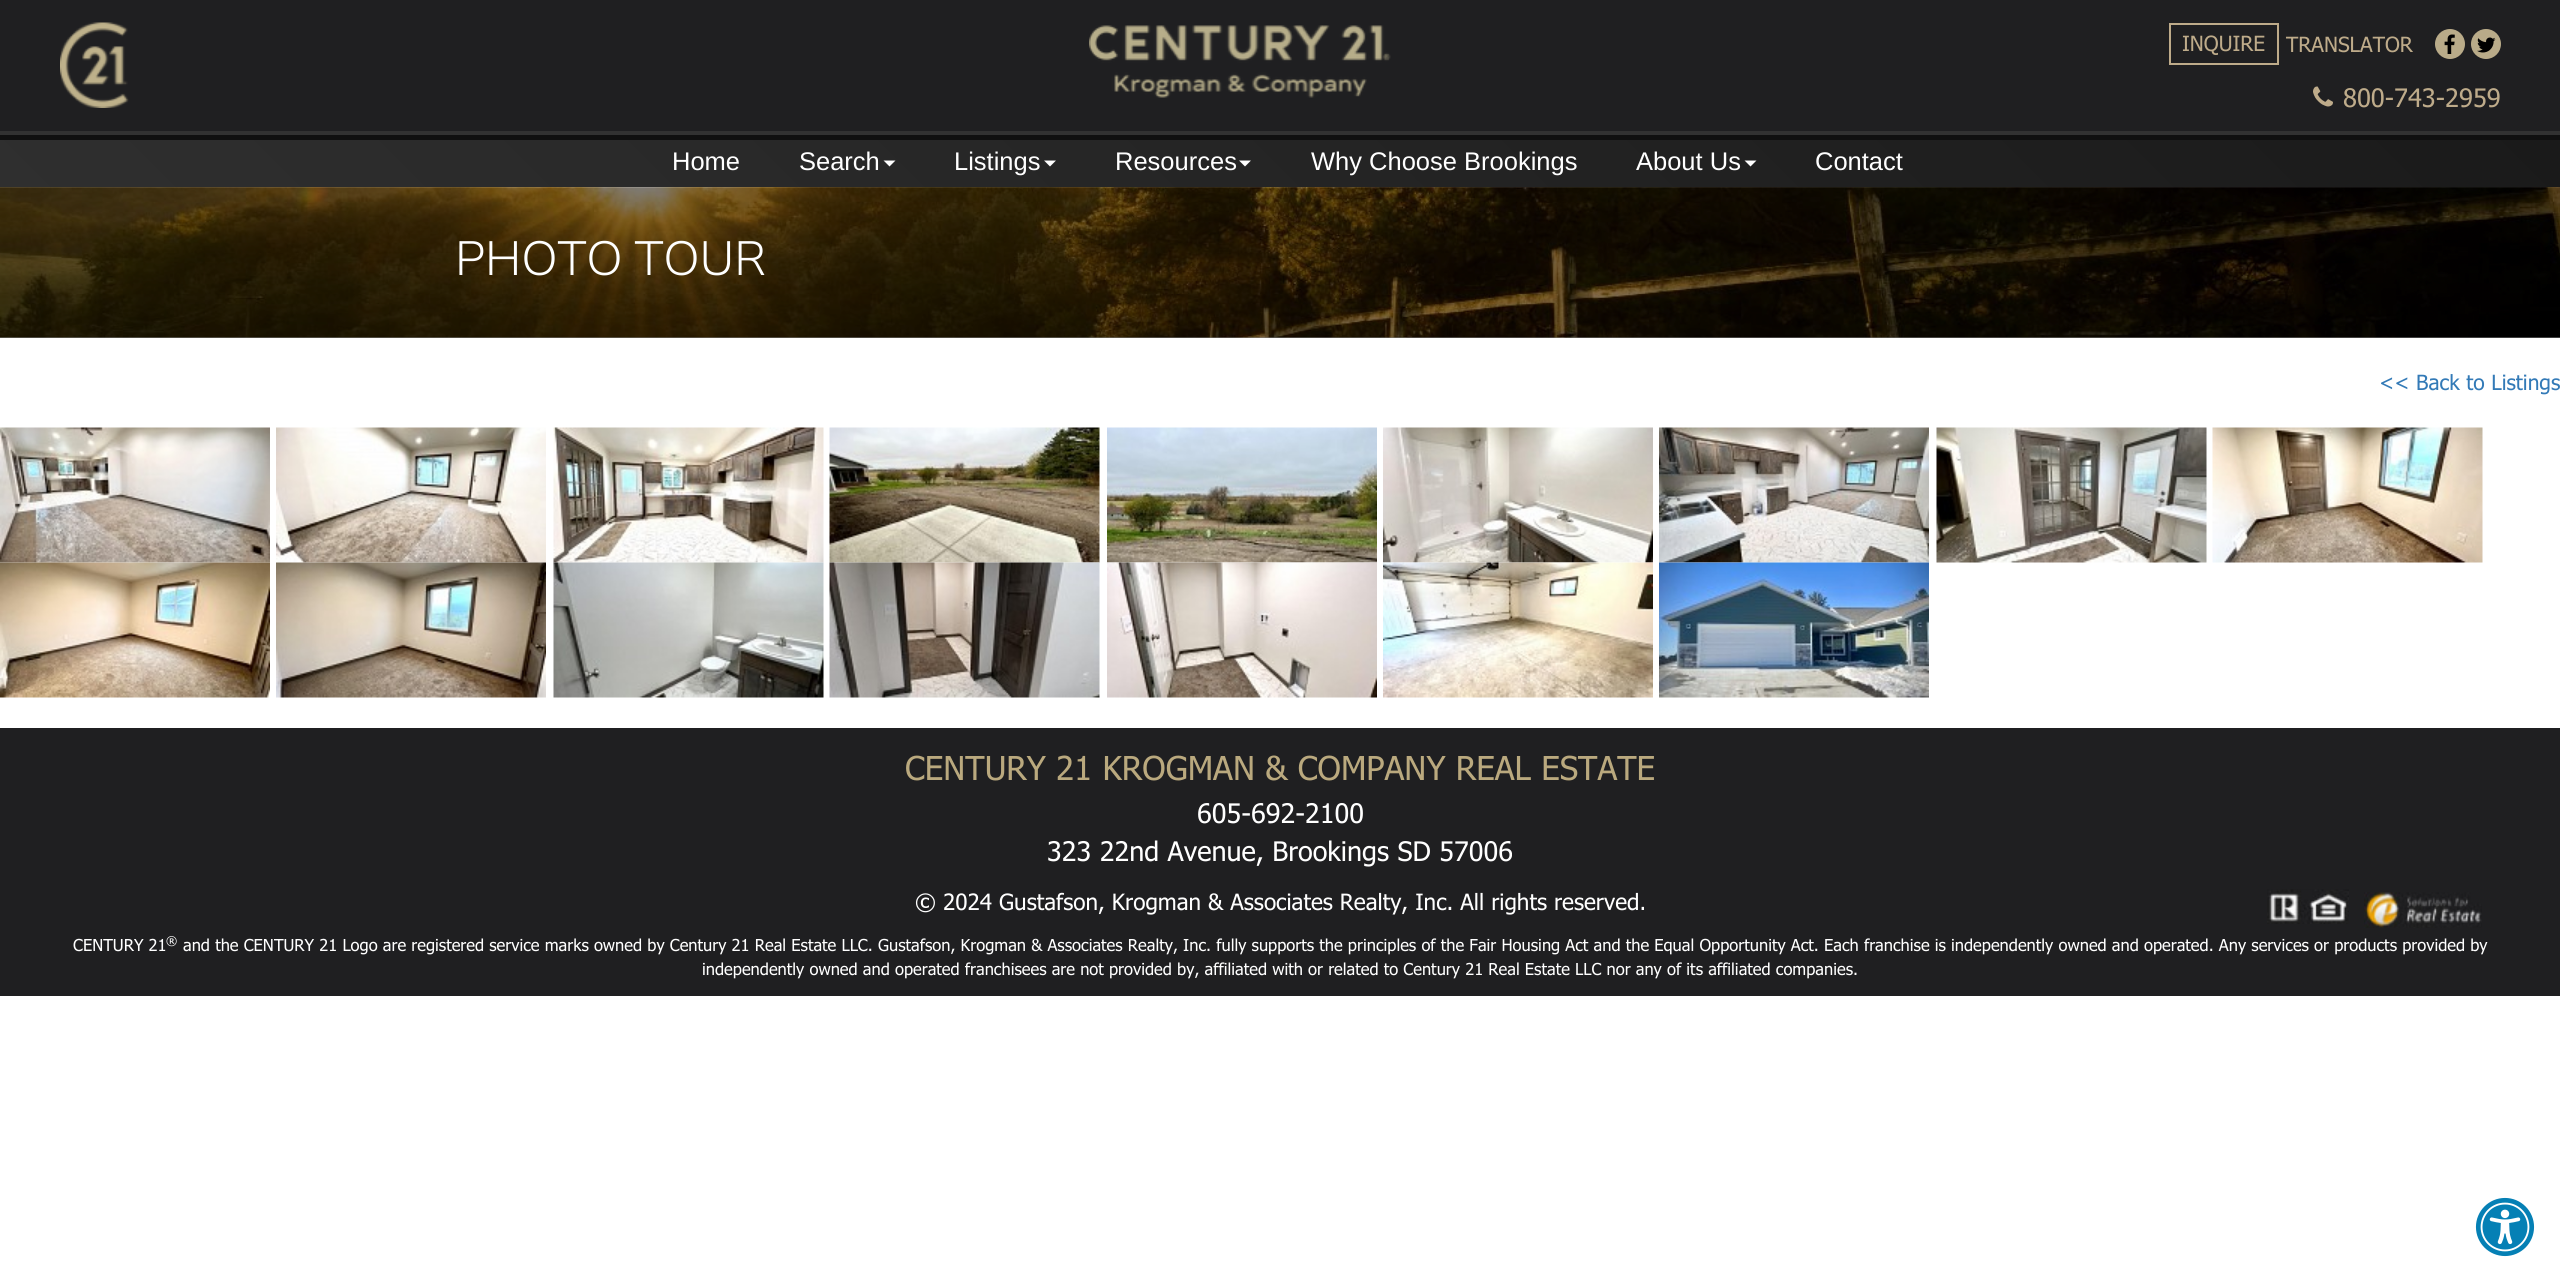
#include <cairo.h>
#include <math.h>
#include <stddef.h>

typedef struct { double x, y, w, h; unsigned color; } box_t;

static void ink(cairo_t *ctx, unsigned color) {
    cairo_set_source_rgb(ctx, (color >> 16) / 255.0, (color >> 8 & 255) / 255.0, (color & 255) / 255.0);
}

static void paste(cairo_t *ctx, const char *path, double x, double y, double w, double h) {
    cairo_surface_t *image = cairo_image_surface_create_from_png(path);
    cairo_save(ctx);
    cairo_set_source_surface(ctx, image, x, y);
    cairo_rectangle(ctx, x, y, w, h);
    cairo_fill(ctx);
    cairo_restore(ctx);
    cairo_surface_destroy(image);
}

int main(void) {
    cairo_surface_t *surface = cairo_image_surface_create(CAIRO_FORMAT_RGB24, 2560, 1282);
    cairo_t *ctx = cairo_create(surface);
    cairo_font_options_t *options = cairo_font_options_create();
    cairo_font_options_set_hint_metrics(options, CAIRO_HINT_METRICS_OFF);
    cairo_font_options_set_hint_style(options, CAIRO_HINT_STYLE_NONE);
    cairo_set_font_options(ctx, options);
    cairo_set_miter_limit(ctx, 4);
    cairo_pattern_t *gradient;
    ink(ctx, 0xFFFFFF);
    cairo_paint(ctx);
    {
        static const box_t items[] = {
            {0, 337, 2560, 1, 0x808080},
            {0, 0, 2560, 131, 0x1F1F21},
            {0, 131, 2560, 4, 0x323232},
        };
        for (size_t i = 0; i < sizeof items / sizeof *items; i++) {
            ink(ctx, items[i].color);
            cairo_rectangle(ctx, items[i].x, items[i].y, items[i].w, items[i].h);
            cairo_fill(ctx);
        }
    }
    paste(ctx, "media/1.png", 60, 22, 69, 86);
    paste(ctx, "media/2.png", 1089, 25, 302, 73);
    cairo_rectangle(ctx, 2170, 24, 108, 40);
    ink(ctx, 0xBEAB8A);
    cairo_stroke(ctx);
    cairo_select_font_face(ctx, "Tahoma", CAIRO_FONT_SLANT_NORMAL, CAIRO_FONT_WEIGHT_NORMAL);
    cairo_set_font_size(ctx, 21);
    cairo_move_to(ctx, 2182, 51);
    cairo_show_text(ctx, "INQUIRE");
    cairo_move_to(ctx, 2286, 52);
    cairo_show_text(ctx, "TRANSLATOR");
    ink(ctx, 0xB9AB89);
    cairo_new_path(ctx);
    cairo_arc(ctx, 2450, 44, 15, 0, 2 * M_PI);
    cairo_fill(ctx);
    paste(ctx, "media/3.png", 2444, 34, 11, 20);
    cairo_arc(ctx, 2486, 44, 15, 0, 2 * M_PI);
    cairo_fill(ctx);
    paste(ctx, "media/4.png", 2477, 37, 19, 16);
    paste(ctx, "media/5.png", 2313, 86, 20, 21);
    cairo_set_font_size(ctx, 25.5);
    ink(ctx, 0xBEAB8A);
    cairo_move_to(ctx, 2343, 107);
    cairo_show_text(ctx, "800-743-2959");
    gradient = cairo_pattern_create_linear(628, 816, 1932, -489);
    cairo_pattern_add_color_stop_rgba(gradient, 0, 0.184, 0.184, 0.184, 1);
    cairo_pattern_add_color_stop_rgba(gradient, 1, 0.102, 0.102, 0.102, 1);
    cairo_set_source(ctx, gradient);
    cairo_pattern_destroy(gradient);
    cairo_rectangle(ctx, 0, 140, 2560, 48);
    cairo_fill(ctx);
    ink(ctx, 0x101010);
    cairo_rectangle(ctx, 0, 135, 2560, 5);
    cairo_fill(ctx);
    cairo_select_font_face(ctx, "Liberation Sans", CAIRO_FONT_SLANT_NORMAL, CAIRO_FONT_WEIGHT_NORMAL);
    ink(ctx, 0xFFFFFF);
    cairo_move_to(ctx, 672, 170);
    cairo_show_text(ctx, "Home");
    cairo_move_to(ctx, 799, 170);
    cairo_show_text(ctx, "Search");
    cairo_new_path(ctx);
    cairo_move_to(ctx, 883.5, 160.5);
    cairo_line_to(ctx, 895.5, 160.5);
    cairo_line_to(ctx, 889.5, 166.5);
    cairo_close_path(ctx);
    cairo_fill(ctx);
    cairo_move_to(ctx, 954, 170);
    cairo_show_text(ctx, "Listings");
    cairo_new_path(ctx);
    cairo_move_to(ctx, 1044, 160.5);
    cairo_line_to(ctx, 1056, 160.5);
    cairo_line_to(ctx, 1050, 166.5);
    cairo_close_path(ctx);
    cairo_fill(ctx);
    cairo_move_to(ctx, 1115, 170);
    cairo_show_text(ctx, "Resources");
    cairo_new_path(ctx);
    cairo_move_to(ctx, 1239, 160.5);
    cairo_line_to(ctx, 1251, 160.5);
    cairo_line_to(ctx, 1245, 166.5);
    cairo_close_path(ctx);
    cairo_fill(ctx);
    cairo_move_to(ctx, 1311, 170);
    cairo_show_text(ctx, "Why Choose Brookings");
    cairo_move_to(ctx, 1636, 170);
    cairo_show_text(ctx, "About Us");
    cairo_new_path(ctx);
    cairo_move_to(ctx, 1744.5, 160.5);
    cairo_line_to(ctx, 1756.5, 160.5);
    cairo_line_to(ctx, 1750.5, 166.5);
    cairo_close_path(ctx);
    cairo_fill(ctx);
    cairo_move_to(ctx, 1815, 170);
    cairo_show_text(ctx, "Contact");
    paste(ctx, "media/6.png", 0, 187, 2560, 151);
    cairo_select_font_face(ctx, "Nunito Sans Light", CAIRO_FONT_SLANT_NORMAL, CAIRO_FONT_WEIGHT_NORMAL);
    cairo_set_font_size(ctx, 48);
    cairo_move_to(ctx, 455, 275);
    cairo_show_text(ctx, "PHOTO TOUR");
    cairo_select_font_face(ctx, "Tahoma", CAIRO_FONT_SLANT_NORMAL, CAIRO_FONT_WEIGHT_NORMAL);
    cairo_set_font_size(ctx, 21);
    ink(ctx, 0x337AB7);
    cairo_move_to(ctx, 2379, 390);
    cairo_show_text(ctx, "<< Back to Listings");
    paste(ctx, "media/7.png", 0, 427, 270, 136);
    paste(ctx, "media/8.png", 276, 427, 270, 136);
    paste(ctx, "media/9.png", 553, 427, 271, 136);
    paste(ctx, "media/10.png", 829, 427, 271, 136);
    paste(ctx, "media/11.png", 1107, 427, 270, 136);
    paste(ctx, "media/12.png", 1383, 427, 270, 136);
    paste(ctx, "media/13.png", 1659, 427, 270, 136);
    paste(ctx, "media/14.png", 1936, 427, 271, 136);
    paste(ctx, "media/15.png", 2212, 427, 271, 136);
    paste(ctx, "media/16.png", 0, 562, 270, 136);
    paste(ctx, "media/17.png", 276, 562, 270, 136);
    paste(ctx, "media/18.png", 553, 562, 271, 136);
    paste(ctx, "media/19.png", 829, 562, 271, 136);
    paste(ctx, "media/20.png", 1107, 562, 270, 136);
    paste(ctx, "media/21.png", 1383, 562, 270, 136);
    paste(ctx, "media/22.png", 1659, 562, 270, 136);
    ink(ctx, 0x1F1F21);
    cairo_rectangle(ctx, 0, 728, 2560, 268);
    cairo_fill(ctx);
    cairo_set_font_size(ctx, 33);
    ink(ctx, 0xBAA97E);
    cairo_move_to(ctx, 905, 780);
    cairo_show_text(ctx, "CENTURY 21 KROGMAN & COMPANY REAL ESTATE");
    cairo_set_font_size(ctx, 27);
    ink(ctx, 0xFFFFFF);
    cairo_move_to(ctx, 1197, 823);
    cairo_show_text(ctx, "605-692-2100");
    cairo_move_to(ctx, 1047, 861);
    cairo_show_text(ctx, "323 22nd Avenue, Brookings SD 57006");
    cairo_set_font_size(ctx, 22.5);
    cairo_move_to(ctx, 915, 910);
    cairo_show_text(ctx, "© 2024 Gustafson, Krogman & Associates Realty, Inc. All rights reserved.");
    cairo_set_font_size(ctx, 16.5);
    cairo_move_to(ctx, 73, 951);
    cairo_show_text(ctx, "CENTURY 21");
    cairo_set_font_size(ctx, 12);
    cairo_move_to(ctx, 166, 945);
    cairo_show_text(ctx, "®");
    cairo_set_font_size(ctx, 16.5);
    cairo_move_to(ctx, 183, 951);
    cairo_show_text(ctx, "and the CENTURY 21 Logo are registered service marks owned by Century 21 Real Estate LLC. Gustafson, Krogman & Associates Realty, Inc. fully supports the principles of the Fair Housing Act and the Equal Opportunity Act. Each franchise is independently owned and operated. Any services or products provided by");
    cairo_move_to(ctx, 702, 975);
    cairo_show_text(ctx, "independently owned and operated franchisees are not provided by, affiliated with or related to Century 21 Real Estate LLC nor any of its affiliated companies.");
    paste(ctx, "media/23.png", 2267, 889, 82, 35);
    paste(ctx, "media/24.png", 2364, 892, 118, 36);
    paste(ctx, "media/25.png", 2475, 1197, 60, 60);
    cairo_surface_write_to_png(surface, "image.png");
    cairo_font_options_destroy(options);
    cairo_destroy(ctx);
    cairo_surface_destroy(surface);
    return 0;
}
